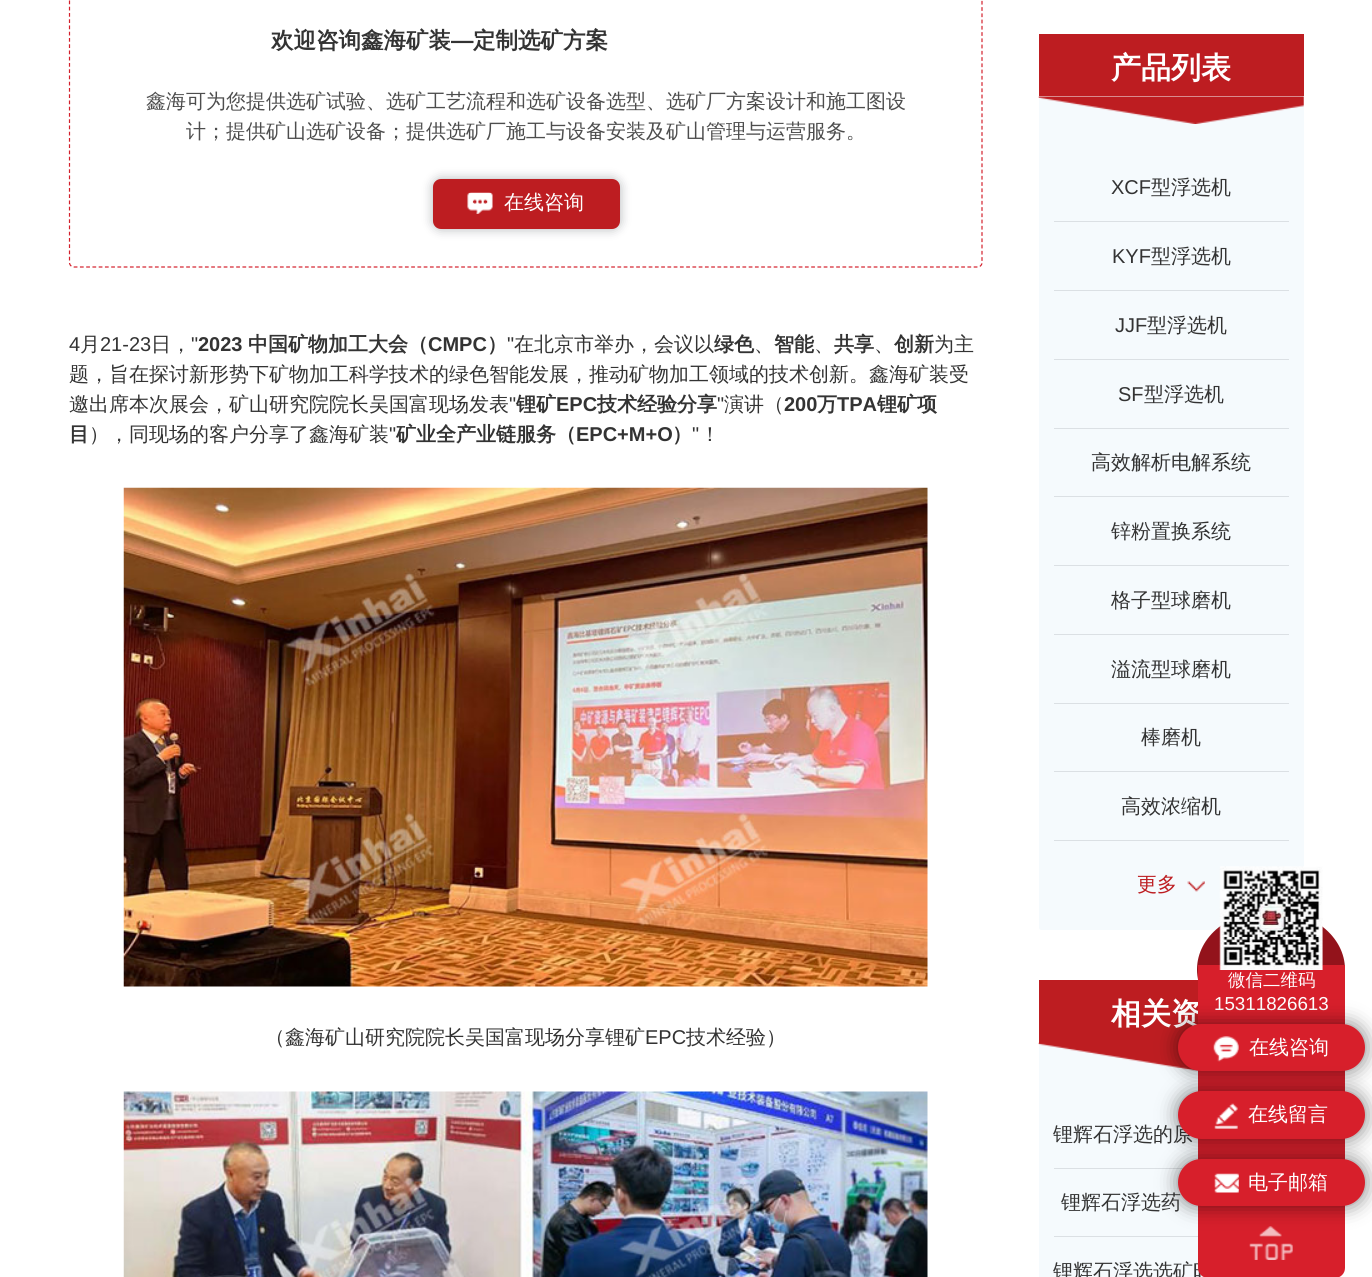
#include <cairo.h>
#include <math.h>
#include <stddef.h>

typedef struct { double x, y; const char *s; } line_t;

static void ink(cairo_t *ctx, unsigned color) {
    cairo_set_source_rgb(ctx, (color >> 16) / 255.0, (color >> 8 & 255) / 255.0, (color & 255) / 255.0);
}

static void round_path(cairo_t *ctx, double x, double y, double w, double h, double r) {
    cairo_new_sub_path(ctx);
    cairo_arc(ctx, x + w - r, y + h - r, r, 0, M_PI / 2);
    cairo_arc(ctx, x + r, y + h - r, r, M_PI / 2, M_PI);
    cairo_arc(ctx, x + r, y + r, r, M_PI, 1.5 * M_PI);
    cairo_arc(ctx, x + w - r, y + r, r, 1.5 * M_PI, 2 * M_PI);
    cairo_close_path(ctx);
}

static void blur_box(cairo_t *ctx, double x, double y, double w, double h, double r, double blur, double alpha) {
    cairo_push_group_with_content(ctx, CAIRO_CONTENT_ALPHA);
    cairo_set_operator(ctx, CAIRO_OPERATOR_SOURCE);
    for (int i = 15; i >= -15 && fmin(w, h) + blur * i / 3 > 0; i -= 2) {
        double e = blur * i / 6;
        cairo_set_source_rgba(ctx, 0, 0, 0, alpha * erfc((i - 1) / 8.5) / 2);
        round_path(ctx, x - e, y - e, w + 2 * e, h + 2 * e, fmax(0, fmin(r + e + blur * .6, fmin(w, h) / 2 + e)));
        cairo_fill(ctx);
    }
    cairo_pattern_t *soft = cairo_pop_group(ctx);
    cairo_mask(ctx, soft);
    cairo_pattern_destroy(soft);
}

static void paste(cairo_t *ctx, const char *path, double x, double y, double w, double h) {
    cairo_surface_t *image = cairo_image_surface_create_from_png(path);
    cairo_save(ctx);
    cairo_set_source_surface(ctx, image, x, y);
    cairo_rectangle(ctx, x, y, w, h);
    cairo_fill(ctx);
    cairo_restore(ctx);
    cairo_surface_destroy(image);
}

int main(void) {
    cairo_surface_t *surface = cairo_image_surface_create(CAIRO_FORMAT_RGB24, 1372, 1277);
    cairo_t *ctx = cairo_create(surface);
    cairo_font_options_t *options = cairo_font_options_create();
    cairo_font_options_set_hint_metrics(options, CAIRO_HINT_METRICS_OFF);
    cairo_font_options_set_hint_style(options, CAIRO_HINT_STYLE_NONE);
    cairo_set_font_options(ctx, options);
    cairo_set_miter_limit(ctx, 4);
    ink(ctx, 0xFFFFFF);
    cairo_paint(ctx);
    cairo_new_path(ctx);
    cairo_move_to(ctx, 74, -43);
    cairo_line_to(ctx, 977.5, -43);
    cairo_curve_to(ctx, 980, -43, 982, -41, 982, -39);
    cairo_line_to(ctx, 982, 262.5);
    cairo_curve_to(ctx, 982, 265, 980, 267, 977.5, 267);
    cairo_line_to(ctx, 74, 267);
    cairo_curve_to(ctx, 71.5, 267, 69.5, 265, 69.5, 262.5);
    cairo_line_to(ctx, 69.5, -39);
    cairo_curve_to(ctx, 69.5, -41, 71.5, -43, 74, -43);
    cairo_close_path(ctx);
    ink(ctx, 0xD31F2B);
    cairo_set_line_width(ctx, 1.2);
    cairo_set_dash(ctx, (double[]){3.75, 2.5}, 2, 0);
    cairo_stroke(ctx);
    cairo_select_font_face(ctx, "WenQuanYi Zen Hei", CAIRO_FONT_SLANT_NORMAL, CAIRO_FONT_WEIGHT_BOLD);
    cairo_set_font_size(ctx, 22.5);
    ink(ctx, 0x333333);
    cairo_move_to(ctx, 271, 48);
    cairo_show_text(ctx, "欢迎咨询鑫海矿装");
    cairo_select_font_face(ctx, "Liberation Sans", CAIRO_FONT_SLANT_NORMAL, CAIRO_FONT_WEIGHT_BOLD);
    cairo_move_to(ctx, 451, 48);
    cairo_show_text(ctx, "—");
    cairo_select_font_face(ctx, "WenQuanYi Zen Hei", CAIRO_FONT_SLANT_NORMAL, CAIRO_FONT_WEIGHT_BOLD);
    cairo_move_to(ctx, 473, 48);
    cairo_show_text(ctx, "定制选矿方案");
    cairo_select_font_face(ctx, "WenQuanYi Zen Hei Medium", CAIRO_FONT_SLANT_NORMAL, CAIRO_FONT_WEIGHT_NORMAL);
    cairo_set_font_size(ctx, 20);
    ink(ctx, 0x4D4D4D);
    cairo_move_to(ctx, 146, 108);
    cairo_show_text(ctx, "鑫海可为您提供选矿试验、选矿工艺流程和选矿设备选型、选矿厂方案设计和施工图设");
    cairo_move_to(ctx, 186, 138);
    cairo_show_text(ctx, "计；提供矿山选矿设备；提供选矿厂施工与设备安装及矿山管理与运营服务。");
    ink(ctx, 0x030A14);
    blur_box(ctx, 433, 179, 187, 50, 8, 5.5, 0.3);
    ink(ctx, 0xBD1D21);
    round_path(ctx, 433, 179, 187, 50, 8);
    cairo_fill(ctx);
    paste(ctx, "media/1.png", 467, 192, 26, 22);
    ink(ctx, 0xFFFFFF);
    cairo_move_to(ctx, 504, 209);
    cairo_show_text(ctx, "在线咨询");
    cairo_select_font_face(ctx, "Liberation Sans", CAIRO_FONT_SLANT_NORMAL, CAIRO_FONT_WEIGHT_NORMAL);
    ink(ctx, 0x333333);
    cairo_move_to(ctx, 69, 351);
    cairo_show_text(ctx, "4");
    cairo_select_font_face(ctx, "WenQuanYi Zen Hei Medium", CAIRO_FONT_SLANT_NORMAL, CAIRO_FONT_WEIGHT_NORMAL);
    cairo_move_to(ctx, 80, 351);
    cairo_show_text(ctx, "月");
    cairo_select_font_face(ctx, "Liberation Sans", CAIRO_FONT_SLANT_NORMAL, CAIRO_FONT_WEIGHT_NORMAL);
    cairo_move_to(ctx, 100, 351);
    cairo_show_text(ctx, "21-23");
    cairo_select_font_face(ctx, "WenQuanYi Zen Hei Medium", CAIRO_FONT_SLANT_NORMAL, CAIRO_FONT_WEIGHT_NORMAL);
    cairo_move_to(ctx, 151, 351);
    cairo_show_text(ctx, "日，");
    cairo_select_font_face(ctx, "Liberation Sans", CAIRO_FONT_SLANT_NORMAL, CAIRO_FONT_WEIGHT_NORMAL);
    cairo_move_to(ctx, 191, 351);
    cairo_show_text(ctx, "\"");
    cairo_select_font_face(ctx, "Liberation Sans", CAIRO_FONT_SLANT_NORMAL, CAIRO_FONT_WEIGHT_BOLD);
    cairo_move_to(ctx, 198, 351);
    cairo_show_text(ctx, "2023");
    cairo_select_font_face(ctx, "WenQuanYi Zen Hei", CAIRO_FONT_SLANT_NORMAL, CAIRO_FONT_WEIGHT_BOLD);
    cairo_move_to(ctx, 248, 351);
    cairo_show_text(ctx, "中国矿物加工大会（");
    cairo_select_font_face(ctx, "Liberation Sans", CAIRO_FONT_SLANT_NORMAL, CAIRO_FONT_WEIGHT_BOLD);
    cairo_move_to(ctx, 428, 351);
    cairo_show_text(ctx, "CMPC");
    cairo_select_font_face(ctx, "WenQuanYi Zen Hei", CAIRO_FONT_SLANT_NORMAL, CAIRO_FONT_WEIGHT_BOLD);
    cairo_move_to(ctx, 487, 351);
    cairo_show_text(ctx, "）");
    cairo_select_font_face(ctx, "Liberation Sans", CAIRO_FONT_SLANT_NORMAL, CAIRO_FONT_WEIGHT_NORMAL);
    cairo_move_to(ctx, 507, 351);
    cairo_show_text(ctx, "\"");
    cairo_select_font_face(ctx, "WenQuanYi Zen Hei Medium", CAIRO_FONT_SLANT_NORMAL, CAIRO_FONT_WEIGHT_NORMAL);
    cairo_move_to(ctx, 514, 351);
    cairo_show_text(ctx, "在北京市举办，会议以");
    cairo_select_font_face(ctx, "WenQuanYi Zen Hei", CAIRO_FONT_SLANT_NORMAL, CAIRO_FONT_WEIGHT_BOLD);
    {
        static const line_t items[] = {
            {714, 351, "绿色"},
            {774, 351, "智能"},
            {834, 351, "共享"},
            {894, 351, "创新"},
        };
        for (size_t i = 0; i < sizeof items / sizeof *items; i++) {
            cairo_move_to(ctx, items[i].x, items[i].y);
            cairo_show_text(ctx, items[i].s);
        }
    }
    cairo_select_font_face(ctx, "WenQuanYi Zen Hei Medium", CAIRO_FONT_SLANT_NORMAL, CAIRO_FONT_WEIGHT_NORMAL);
    {
        static const line_t items[] = {
            {934, 351, "为主"},
            {754, 351, "、"},
            {814, 351, "、"},
            {874, 351, "、"},
            {69, 381, "题，旨在探讨新形势下矿物加工科学技术的绿色智能发展，推动矿物加工领域的技术创新。鑫海矿装受"},
            {69, 411, "邀出席本次展会，矿山研究院院长吴国富现场发表"},
        };
        for (size_t i = 0; i < sizeof items / sizeof *items; i++) {
            cairo_move_to(ctx, items[i].x, items[i].y);
            cairo_show_text(ctx, items[i].s);
        }
    }
    cairo_select_font_face(ctx, "Liberation Sans", CAIRO_FONT_SLANT_NORMAL, CAIRO_FONT_WEIGHT_NORMAL);
    cairo_move_to(ctx, 509, 411);
    cairo_show_text(ctx, "\"");
    cairo_select_font_face(ctx, "WenQuanYi Zen Hei", CAIRO_FONT_SLANT_NORMAL, CAIRO_FONT_WEIGHT_BOLD);
    cairo_move_to(ctx, 516, 411);
    cairo_show_text(ctx, "锂矿");
    cairo_select_font_face(ctx, "Liberation Sans", CAIRO_FONT_SLANT_NORMAL, CAIRO_FONT_WEIGHT_BOLD);
    cairo_move_to(ctx, 556, 411);
    cairo_show_text(ctx, "EPC");
    cairo_select_font_face(ctx, "WenQuanYi Zen Hei", CAIRO_FONT_SLANT_NORMAL, CAIRO_FONT_WEIGHT_BOLD);
    cairo_move_to(ctx, 597, 411);
    cairo_show_text(ctx, "技术经验分享");
    cairo_select_font_face(ctx, "Liberation Sans", CAIRO_FONT_SLANT_NORMAL, CAIRO_FONT_WEIGHT_NORMAL);
    cairo_move_to(ctx, 717, 411);
    cairo_show_text(ctx, "\"");
    cairo_select_font_face(ctx, "WenQuanYi Zen Hei Medium", CAIRO_FONT_SLANT_NORMAL, CAIRO_FONT_WEIGHT_NORMAL);
    cairo_move_to(ctx, 724, 411);
    cairo_show_text(ctx, "演讲（");
    cairo_select_font_face(ctx, "Liberation Sans", CAIRO_FONT_SLANT_NORMAL, CAIRO_FONT_WEIGHT_BOLD);
    cairo_move_to(ctx, 784, 411);
    cairo_show_text(ctx, "200");
    cairo_select_font_face(ctx, "WenQuanYi Zen Hei", CAIRO_FONT_SLANT_NORMAL, CAIRO_FONT_WEIGHT_BOLD);
    cairo_move_to(ctx, 817, 411);
    cairo_show_text(ctx, "万");
    cairo_select_font_face(ctx, "Liberation Sans", CAIRO_FONT_SLANT_NORMAL, CAIRO_FONT_WEIGHT_BOLD);
    cairo_move_to(ctx, 837, 411);
    cairo_show_text(ctx, "TPA");
    cairo_select_font_face(ctx, "WenQuanYi Zen Hei", CAIRO_FONT_SLANT_NORMAL, CAIRO_FONT_WEIGHT_BOLD);
    cairo_move_to(ctx, 877, 411);
    cairo_show_text(ctx, "锂矿项");
    cairo_move_to(ctx, 69, 441);
    cairo_show_text(ctx, "目");
    cairo_select_font_face(ctx, "WenQuanYi Zen Hei Medium", CAIRO_FONT_SLANT_NORMAL, CAIRO_FONT_WEIGHT_NORMAL);
    cairo_move_to(ctx, 89, 441);
    cairo_show_text(ctx, "），同现场的客户分享了鑫海矿装");
    cairo_select_font_face(ctx, "Liberation Sans", CAIRO_FONT_SLANT_NORMAL, CAIRO_FONT_WEIGHT_NORMAL);
    cairo_move_to(ctx, 389, 441);
    cairo_show_text(ctx, "\"");
    cairo_select_font_face(ctx, "WenQuanYi Zen Hei", CAIRO_FONT_SLANT_NORMAL, CAIRO_FONT_WEIGHT_BOLD);
    cairo_move_to(ctx, 396, 441);
    cairo_show_text(ctx, "矿业全产业链服务（");
    cairo_select_font_face(ctx, "Liberation Sans", CAIRO_FONT_SLANT_NORMAL, CAIRO_FONT_WEIGHT_BOLD);
    cairo_move_to(ctx, 576, 441);
    cairo_show_text(ctx, "EPC+M+O");
    cairo_select_font_face(ctx, "WenQuanYi Zen Hei", CAIRO_FONT_SLANT_NORMAL, CAIRO_FONT_WEIGHT_BOLD);
    cairo_move_to(ctx, 672, 441);
    cairo_show_text(ctx, "）");
    cairo_select_font_face(ctx, "Liberation Sans", CAIRO_FONT_SLANT_NORMAL, CAIRO_FONT_WEIGHT_NORMAL);
    cairo_move_to(ctx, 692, 441);
    cairo_show_text(ctx, "\"");
    cairo_select_font_face(ctx, "WenQuanYi Zen Hei Medium", CAIRO_FONT_SLANT_NORMAL, CAIRO_FONT_WEIGHT_NORMAL);
    cairo_move_to(ctx, 700, 441);
    cairo_show_text(ctx, "！");
    paste(ctx, "media/2.png", 123, 487, 805, 500);
    cairo_move_to(ctx, 265, 1044);
    cairo_show_text(ctx, "（鑫海矿山研究院院长吴国富现场分享锂矿");
    cairo_select_font_face(ctx, "Liberation Sans", CAIRO_FONT_SLANT_NORMAL, CAIRO_FONT_WEIGHT_NORMAL);
    cairo_move_to(ctx, 645, 1044);
    cairo_show_text(ctx, "EPC");
    cairo_select_font_face(ctx, "WenQuanYi Zen Hei Medium", CAIRO_FONT_SLANT_NORMAL, CAIRO_FONT_WEIGHT_NORMAL);
    cairo_move_to(ctx, 686, 1044);
    cairo_show_text(ctx, "技术经验）");
    paste(ctx, "media/3.png", 123, 1091, 805, 186);
    ink(ctx, 0xF5FAFD);
    cairo_new_path(ctx);
    cairo_move_to(ctx, 1041.5, 34);
    cairo_line_to(ctx, 1301.5, 34);
    cairo_curve_to(ctx, 1303, 34, 1304, 35, 1304, 36.5);
    cairo_line_to(ctx, 1304, 925);
    cairo_curve_to(ctx, 1304, 928, 1302, 930, 1299, 930);
    cairo_line_to(ctx, 1041.5, 930);
    cairo_curve_to(ctx, 1040, 930, 1039, 929, 1039, 927.5);
    cairo_line_to(ctx, 1039, 36.5);
    cairo_curve_to(ctx, 1039, 35, 1040, 34, 1041.5, 34);
    cairo_close_path(ctx);
    cairo_fill(ctx);
    ink(ctx, 0xBD1D21);
    cairo_rectangle(ctx, 1039, 34, 265, 62);
    cairo_fill(ctx);
    cairo_select_font_face(ctx, "WenQuanYi Zen Hei", CAIRO_FONT_SLANT_NORMAL, CAIRO_FONT_WEIGHT_BOLD);
    cairo_set_font_size(ctx, 30);
    ink(ctx, 0xFFFFFF);
    cairo_move_to(ctx, 1111, 78);
    cairo_show_text(ctx, "产品列表");
    paste(ctx, "media/4.png", 1038, 96, 266, 28);
    ink(ctx, 0xDBE0E4);
    cairo_rectangle(ctx, 1054, 221, 235, 1);
    cairo_fill(ctx);
    cairo_select_font_face(ctx, "Liberation Sans", CAIRO_FONT_SLANT_NORMAL, CAIRO_FONT_WEIGHT_NORMAL);
    cairo_set_font_size(ctx, 20);
    ink(ctx, 0x333333);
    cairo_move_to(ctx, 1111, 194);
    cairo_show_text(ctx, "XCF");
    cairo_select_font_face(ctx, "WenQuanYi Zen Hei Medium", CAIRO_FONT_SLANT_NORMAL, CAIRO_FONT_WEIGHT_NORMAL);
    cairo_move_to(ctx, 1151, 194);
    cairo_show_text(ctx, "型浮选机");
    ink(ctx, 0xDBE0E4);
    cairo_rectangle(ctx, 1054, 290, 235, 1);
    cairo_fill(ctx);
    cairo_select_font_face(ctx, "Liberation Sans", CAIRO_FONT_SLANT_NORMAL, CAIRO_FONT_WEIGHT_NORMAL);
    ink(ctx, 0x333333);
    cairo_move_to(ctx, 1112, 263);
    cairo_show_text(ctx, "KYF");
    cairo_select_font_face(ctx, "WenQuanYi Zen Hei Medium", CAIRO_FONT_SLANT_NORMAL, CAIRO_FONT_WEIGHT_NORMAL);
    cairo_move_to(ctx, 1151, 263);
    cairo_show_text(ctx, "型浮选机");
    ink(ctx, 0xDBE0E4);
    cairo_rectangle(ctx, 1054, 359, 235, 1);
    cairo_fill(ctx);
    cairo_select_font_face(ctx, "Liberation Sans", CAIRO_FONT_SLANT_NORMAL, CAIRO_FONT_WEIGHT_NORMAL);
    ink(ctx, 0x333333);
    cairo_move_to(ctx, 1115, 332);
    cairo_show_text(ctx, "JJF");
    cairo_select_font_face(ctx, "WenQuanYi Zen Hei Medium", CAIRO_FONT_SLANT_NORMAL, CAIRO_FONT_WEIGHT_NORMAL);
    cairo_move_to(ctx, 1147, 332);
    cairo_show_text(ctx, "型浮选机");
    ink(ctx, 0xDBE0E4);
    cairo_rectangle(ctx, 1054, 428, 235, 1);
    cairo_fill(ctx);
    cairo_select_font_face(ctx, "Liberation Sans", CAIRO_FONT_SLANT_NORMAL, CAIRO_FONT_WEIGHT_NORMAL);
    ink(ctx, 0x333333);
    cairo_move_to(ctx, 1118, 401);
    cairo_show_text(ctx, "SF");
    cairo_select_font_face(ctx, "WenQuanYi Zen Hei Medium", CAIRO_FONT_SLANT_NORMAL, CAIRO_FONT_WEIGHT_NORMAL);
    cairo_move_to(ctx, 1144, 401);
    cairo_show_text(ctx, "型浮选机");
    ink(ctx, 0xDBE0E4);
    cairo_rectangle(ctx, 1054, 496, 235, 1);
    cairo_fill(ctx);
    ink(ctx, 0x333333);
    cairo_move_to(ctx, 1091, 469);
    cairo_show_text(ctx, "高效解析电解系统");
    ink(ctx, 0xDBE0E4);
    cairo_rectangle(ctx, 1054, 565, 235, 1);
    cairo_fill(ctx);
    ink(ctx, 0x333333);
    cairo_move_to(ctx, 1111, 538);
    cairo_show_text(ctx, "锌粉置换系统");
    ink(ctx, 0xDBE0E4);
    cairo_rectangle(ctx, 1054, 634, 235, 1);
    cairo_fill(ctx);
    ink(ctx, 0x333333);
    cairo_move_to(ctx, 1111, 607);
    cairo_show_text(ctx, "格子型球磨机");
    ink(ctx, 0xDBE0E4);
    cairo_rectangle(ctx, 1054, 703, 235, 1);
    cairo_fill(ctx);
    ink(ctx, 0x333333);
    cairo_move_to(ctx, 1111, 676);
    cairo_show_text(ctx, "溢流型球磨机");
    ink(ctx, 0xDBE0E4);
    cairo_rectangle(ctx, 1054, 771, 235, 1);
    cairo_fill(ctx);
    ink(ctx, 0x333333);
    cairo_move_to(ctx, 1141, 744);
    cairo_show_text(ctx, "棒磨机");
    ink(ctx, 0xDBE0E4);
    cairo_rectangle(ctx, 1054, 840, 235, 1);
    cairo_fill(ctx);
    ink(ctx, 0x333333);
    cairo_move_to(ctx, 1121, 813);
    cairo_show_text(ctx, "高效浓缩机");
    ink(ctx, 0xBD1D21);
    cairo_move_to(ctx, 1137, 891);
    cairo_show_text(ctx, "更多");
    paste(ctx, "media/5.png", 1187, 881, 18, 11);
    ink(ctx, 0xF5FAFD);
    cairo_rectangle(ctx, 1039, 1043, 165, 234);
    cairo_fill(ctx);
    ink(ctx, 0xBD1D21);
    cairo_rectangle(ctx, 1039, 980, 159, 63);
    cairo_fill(ctx);
    cairo_select_font_face(ctx, "WenQuanYi Zen Hei", CAIRO_FONT_SLANT_NORMAL, CAIRO_FONT_WEIGHT_BOLD);
    cairo_set_font_size(ctx, 30);
    ink(ctx, 0xFFFFFF);
    cairo_move_to(ctx, 1111, 1024);
    cairo_show_text(ctx, "相关资");
    paste(ctx, "media/6.png", 1038, 1042, 160, 29);
    ink(ctx, 0xDBE0E4);
    cairo_rectangle(ctx, 1054, 1168, 129, 1);
    cairo_fill(ctx);
    cairo_select_font_face(ctx, "WenQuanYi Zen Hei Medium", CAIRO_FONT_SLANT_NORMAL, CAIRO_FONT_WEIGHT_NORMAL);
    cairo_set_font_size(ctx, 20);
    ink(ctx, 0x333333);
    cairo_move_to(ctx, 1053, 1141);
    cairo_show_text(ctx, "锂辉石浮选的原");
    ink(ctx, 0xDBE0E4);
    cairo_rectangle(ctx, 1054, 1236, 144, 1);
    cairo_fill(ctx);
    ink(ctx, 0x333333);
    cairo_move_to(ctx, 1061, 1209);
    cairo_show_text(ctx, "锂辉石浮选药");
    cairo_move_to(ctx, 1053, 1278);
    cairo_show_text(ctx, "锂辉石浮选选矿时");
    ink(ctx, 0x93131B);
    cairo_new_path(ctx);
    cairo_move_to(ctx, 1271, 910);
    cairo_curve_to(ctx, 1312, 910, 1345, 936.5, 1345, 969.5);
    cairo_curve_to(ctx, 1345, 1002.5, 1312, 1029, 1271, 1029);
    cairo_curve_to(ctx, 1230, 1029, 1197, 1002.5, 1197, 969.5);
    cairo_curve_to(ctx, 1197, 936.5, 1230, 910, 1271, 910);
    cairo_close_path(ctx);
    cairo_fill(ctx);
    ink(ctx, 0xD71F2B);
    cairo_new_path(ctx);
    cairo_move_to(ctx, 1198, 965);
    cairo_line_to(ctx, 1345, 965);
    cairo_line_to(ctx, 1345, 1268);
    cairo_curve_to(ctx, 1345, 1273.5, 1340.5, 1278, 1335, 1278);
    cairo_line_to(ctx, 1208, 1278);
    cairo_curve_to(ctx, 1202.5, 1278, 1198, 1273.5, 1198, 1268);
    cairo_close_path(ctx);
    cairo_fill(ctx);
    paste(ctx, "media/7.png", 1219, 866, 104, 104);
    cairo_set_font_size(ctx, 17.5);
    ink(ctx, 0xFFFFFF);
    cairo_move_to(ctx, 1228, 986);
    cairo_show_text(ctx, "微信二维码");
    cairo_select_font_face(ctx, "Liberation Sans", CAIRO_FONT_SLANT_NORMAL, CAIRO_FONT_WEIGHT_NORMAL);
    cairo_set_font_size(ctx, 18.75);
    cairo_move_to(ctx, 1214, 1010);
    cairo_show_text(ctx, "15311826613");
    ink(ctx, 0x000000);
    blur_box(ctx, 1178, 1024, 187, 47, 23.5, 10, 0.5);
    ink(ctx, 0xD71F2B);
    round_path(ctx, 1178, 1024, 187, 47, 23.5);
    cairo_fill(ctx);
    ink(ctx, 0x000000);
    blur_box(ctx, 1178, 1091, 187, 48, 24, 10, 0.5);
    paste(ctx, "media/8.png", 1213, 1036, 26, 26);
    cairo_select_font_face(ctx, "WenQuanYi Zen Hei Medium", CAIRO_FONT_SLANT_NORMAL, CAIRO_FONT_WEIGHT_NORMAL);
    cairo_set_font_size(ctx, 20);
    ink(ctx, 0xFFFFFF);
    cairo_move_to(ctx, 1249, 1054);
    cairo_show_text(ctx, "在线咨询");
    ink(ctx, 0xD71F2B);
    round_path(ctx, 1178, 1091, 187, 48, 24);
    cairo_fill(ctx);
    paste(ctx, "media/9.png", 1214, 1103, 24, 26);
    ink(ctx, 0xFFFFFF);
    cairo_move_to(ctx, 1248, 1121);
    cairo_show_text(ctx, "在线留言");
    ink(ctx, 0x000000);
    blur_box(ctx, 1178, 1159, 187, 47, 23.5, 10, 0.5);
    ink(ctx, 0xD71F2B);
    round_path(ctx, 1178, 1159, 187, 47, 23.5);
    cairo_fill(ctx);
    paste(ctx, "media/10.png", 1214, 1173, 25, 20);
    ink(ctx, 0xFFFFFF);
    cairo_move_to(ctx, 1248, 1189);
    cairo_show_text(ctx, "电子邮箱");
    paste(ctx, "media/11.png", 1249, 1226, 44, 34);
    cairo_surface_write_to_png(surface, "image.png");
    cairo_font_options_destroy(options);
    cairo_destroy(ctx);
    cairo_surface_destroy(surface);
    return 0;
}
